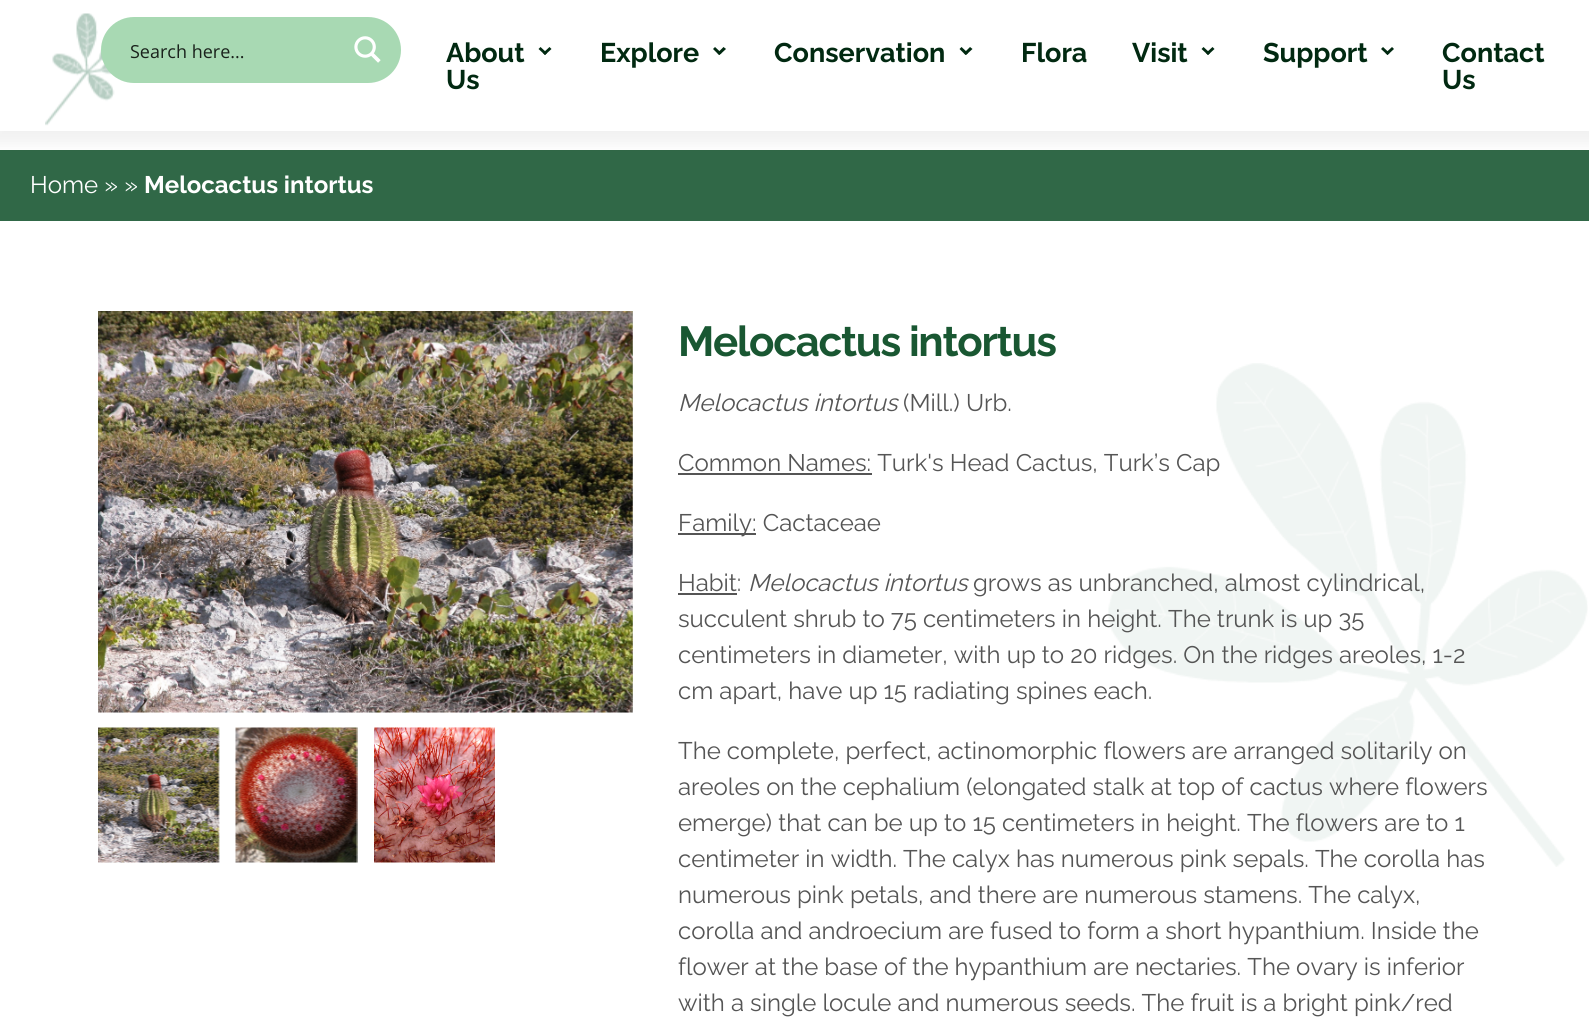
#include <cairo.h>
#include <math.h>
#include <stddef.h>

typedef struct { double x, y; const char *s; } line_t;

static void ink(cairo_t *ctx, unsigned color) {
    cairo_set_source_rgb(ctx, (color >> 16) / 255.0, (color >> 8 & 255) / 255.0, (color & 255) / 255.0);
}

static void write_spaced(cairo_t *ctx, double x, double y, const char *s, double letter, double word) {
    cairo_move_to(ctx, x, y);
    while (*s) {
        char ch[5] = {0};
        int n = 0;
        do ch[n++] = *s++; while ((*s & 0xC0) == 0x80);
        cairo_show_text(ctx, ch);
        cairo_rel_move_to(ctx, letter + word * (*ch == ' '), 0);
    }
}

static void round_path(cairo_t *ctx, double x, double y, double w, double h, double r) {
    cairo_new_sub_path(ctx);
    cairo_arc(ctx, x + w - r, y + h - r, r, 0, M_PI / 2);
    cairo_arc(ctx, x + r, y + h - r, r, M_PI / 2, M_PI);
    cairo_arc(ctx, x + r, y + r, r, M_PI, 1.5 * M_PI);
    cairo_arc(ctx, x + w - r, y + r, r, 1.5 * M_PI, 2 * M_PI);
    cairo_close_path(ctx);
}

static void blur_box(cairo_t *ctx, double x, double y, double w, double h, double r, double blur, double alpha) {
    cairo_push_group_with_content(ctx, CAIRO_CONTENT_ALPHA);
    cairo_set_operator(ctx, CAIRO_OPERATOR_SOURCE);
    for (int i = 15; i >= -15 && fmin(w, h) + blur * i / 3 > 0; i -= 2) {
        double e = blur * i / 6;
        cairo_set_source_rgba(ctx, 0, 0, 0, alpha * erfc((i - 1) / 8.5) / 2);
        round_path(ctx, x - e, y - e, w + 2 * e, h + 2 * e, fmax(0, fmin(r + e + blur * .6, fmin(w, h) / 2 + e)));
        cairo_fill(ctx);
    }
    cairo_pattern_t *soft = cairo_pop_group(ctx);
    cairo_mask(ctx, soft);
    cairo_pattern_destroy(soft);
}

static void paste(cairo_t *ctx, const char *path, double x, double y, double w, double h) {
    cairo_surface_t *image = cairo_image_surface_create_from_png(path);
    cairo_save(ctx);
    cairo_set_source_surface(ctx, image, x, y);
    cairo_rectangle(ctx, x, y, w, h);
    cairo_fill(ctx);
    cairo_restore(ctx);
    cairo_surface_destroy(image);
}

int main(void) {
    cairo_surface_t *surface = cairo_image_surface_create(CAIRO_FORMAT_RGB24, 1589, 1018);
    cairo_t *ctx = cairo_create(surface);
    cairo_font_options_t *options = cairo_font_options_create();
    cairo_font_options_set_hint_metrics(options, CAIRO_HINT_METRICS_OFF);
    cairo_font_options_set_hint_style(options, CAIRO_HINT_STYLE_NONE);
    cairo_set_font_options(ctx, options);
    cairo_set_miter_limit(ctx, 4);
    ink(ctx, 0xFFFFFF);
    cairo_paint(ctx);
    ink(ctx, 0x306847);
    cairo_rectangle(ctx, 0, 150, 1589, 71);
    cairo_fill(ctx);
    ink(ctx, 0x000000);
    blur_box(ctx, -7, -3, 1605, 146, 0, 7.5, 0.06);
    ink(ctx, 0xFFFFFF);
    cairo_rectangle(ctx, 0, 0, 1589, 131);
    cairo_fill(ctx);
    paste(ctx, "media/1.png", 45, 13, 70, 113);
    ink(ctx, 0xA8D9B3);
    round_path(ctx, 101, 17, 300, 66, 33);
    cairo_fill(ctx);
    cairo_select_font_face(ctx, "Open Sans", CAIRO_FONT_SLANT_NORMAL, CAIRO_FONT_WEIGHT_NORMAL);
    cairo_set_font_size(ctx, 18);
    ink(ctx, 0x19211B);
    cairo_move_to(ctx, 130, 58);
    cairo_show_text(ctx, "Search here...");
    paste(ctx, "media/2.png", 354, 36, 27, 27);
    cairo_select_font_face(ctx, "Raleway", CAIRO_FONT_SLANT_NORMAL, CAIRO_FONT_WEIGHT_BOLD);
    cairo_set_font_size(ctx, 27);
    ink(ctx, 0x012911);
    cairo_move_to(ctx, 446, 62);
    cairo_show_text(ctx, "About");
    cairo_new_path(ctx);
    cairo_move_to(ctx, 540.5, 47);
    cairo_line_to(ctx, 547, 53);
    cairo_line_to(ctx, 545, 55);
    cairo_line_to(ctx, 538.5, 49);
    cairo_close_path(ctx);
    cairo_fill(ctx);
    cairo_new_path(ctx);
    cairo_move_to(ctx, 543, 53);
    cairo_line_to(ctx, 549.5, 47);
    cairo_line_to(ctx, 551.5, 49);
    cairo_line_to(ctx, 545, 55);
    cairo_close_path(ctx);
    cairo_fill(ctx);
    cairo_move_to(ctx, 446, 89);
    cairo_show_text(ctx, "Us");
    cairo_move_to(ctx, 600, 62);
    cairo_show_text(ctx, "Explore");
    cairo_new_path(ctx);
    cairo_move_to(ctx, 715, 47);
    cairo_line_to(ctx, 721.5, 53);
    cairo_line_to(ctx, 719, 55);
    cairo_line_to(ctx, 713, 49);
    cairo_close_path(ctx);
    cairo_fill(ctx);
    cairo_new_path(ctx);
    cairo_move_to(ctx, 717.5, 53);
    cairo_line_to(ctx, 723.5, 47);
    cairo_line_to(ctx, 726, 49);
    cairo_line_to(ctx, 719.5, 55);
    cairo_close_path(ctx);
    cairo_fill(ctx);
    cairo_move_to(ctx, 774, 62);
    cairo_show_text(ctx, "Conservation");
    cairo_new_path(ctx);
    cairo_move_to(ctx, 961.5, 47);
    cairo_line_to(ctx, 968, 53);
    cairo_line_to(ctx, 965.5, 55);
    cairo_line_to(ctx, 959.5, 49);
    cairo_close_path(ctx);
    cairo_fill(ctx);
    cairo_new_path(ctx);
    cairo_move_to(ctx, 964, 53);
    cairo_line_to(ctx, 970, 47);
    cairo_line_to(ctx, 972.5, 49);
    cairo_line_to(ctx, 966, 55);
    cairo_close_path(ctx);
    cairo_fill(ctx);
    cairo_move_to(ctx, 1021, 62);
    cairo_show_text(ctx, "Flora");
    cairo_move_to(ctx, 1132, 62);
    cairo_show_text(ctx, "Visit");
    cairo_new_path(ctx);
    cairo_move_to(ctx, 1203.5, 47);
    cairo_line_to(ctx, 1210, 53);
    cairo_line_to(ctx, 1208, 55);
    cairo_line_to(ctx, 1201.5, 49);
    cairo_close_path(ctx);
    cairo_fill(ctx);
    cairo_new_path(ctx);
    cairo_move_to(ctx, 1206, 53);
    cairo_line_to(ctx, 1212.5, 47);
    cairo_line_to(ctx, 1214.5, 49);
    cairo_line_to(ctx, 1208, 55);
    cairo_close_path(ctx);
    cairo_fill(ctx);
    cairo_move_to(ctx, 1263, 62);
    cairo_show_text(ctx, "Support");
    cairo_new_path(ctx);
    cairo_move_to(ctx, 1383, 47);
    cairo_line_to(ctx, 1389.5, 53);
    cairo_line_to(ctx, 1387.5, 55);
    cairo_line_to(ctx, 1381, 49);
    cairo_close_path(ctx);
    cairo_fill(ctx);
    cairo_new_path(ctx);
    cairo_move_to(ctx, 1385.5, 53);
    cairo_line_to(ctx, 1392, 47);
    cairo_line_to(ctx, 1394, 49);
    cairo_line_to(ctx, 1387.5, 55);
    cairo_close_path(ctx);
    cairo_fill(ctx);
    cairo_move_to(ctx, 1442, 62);
    cairo_show_text(ctx, "Contact");
    cairo_move_to(ctx, 1442, 89);
    cairo_show_text(ctx, "Us");
    cairo_select_font_face(ctx, "Raleway", CAIRO_FONT_SLANT_NORMAL, CAIRO_FONT_WEIGHT_NORMAL);
    cairo_set_font_size(ctx, 24);
    ink(ctx, 0xFFFFFF);
    cairo_move_to(ctx, 30, 193);
    cairo_show_text(ctx, "Home » »");
    cairo_select_font_face(ctx, "Raleway", CAIRO_FONT_SLANT_NORMAL, CAIRO_FONT_WEIGHT_BOLD);
    cairo_move_to(ctx, 144, 193);
    cairo_show_text(ctx, "Melocactus intortus");
    paste(ctx, "media/3.png", 1108, 363, 480, 504);
    paste(ctx, "media/4.png", 98, 311, 535, 402);
    paste(ctx, "media/5.png", 98, 727, 122, 136);
    paste(ctx, "media/6.png", 235, 727, 123, 136);
    paste(ctx, "media/7.png", 374, 727, 121, 136);
    cairo_set_font_size(ctx, 42);
    ink(ctx, 0x195732);
    write_spaced(ctx, 678, 356, "Melocactus intortus", -1.25, 0);
    cairo_select_font_face(ctx, "Raleway", CAIRO_FONT_SLANT_ITALIC, CAIRO_FONT_WEIGHT_NORMAL);
    cairo_set_font_size(ctx, 24);
    ink(ctx, 0x555555);
    cairo_move_to(ctx, 678, 411);
    cairo_show_text(ctx, "Melocactus intortus");
    cairo_select_font_face(ctx, "Raleway", CAIRO_FONT_SLANT_NORMAL, CAIRO_FONT_WEIGHT_NORMAL);
    cairo_move_to(ctx, 903, 411);
    cairo_show_text(ctx, "(Mill.) Urb.");
    cairo_rectangle(ctx, 678, 473, 194, 2);
    cairo_fill(ctx);
    cairo_move_to(ctx, 678, 471);
    cairo_show_text(ctx, "Common Names: Turk's Head Cactus, Turk’s Cap");
    cairo_rectangle(ctx, 678, 533, 78, 2);
    cairo_fill(ctx);
    cairo_move_to(ctx, 678, 531);
    cairo_show_text(ctx, "Family: Cactaceae");
    cairo_move_to(ctx, 678, 591);
    cairo_show_text(ctx, "Habit:");
    cairo_rectangle(ctx, 678, 593, 59, 2);
    cairo_fill(ctx);
    cairo_select_font_face(ctx, "Raleway", CAIRO_FONT_SLANT_ITALIC, CAIRO_FONT_WEIGHT_NORMAL);
    cairo_move_to(ctx, 748, 591);
    cairo_show_text(ctx, "Melocactus intortus");
    cairo_select_font_face(ctx, "Raleway", CAIRO_FONT_SLANT_NORMAL, CAIRO_FONT_WEIGHT_NORMAL);
    {
        static const line_t items[] = {
            {973, 591, "grows as unbranched, almost cylindrical,"},
            {678, 627, "succulent shrub to 75 centimeters in height. The trunk is up 35"},
            {678, 663, "centimeters in diameter, with up to 20 ridges. On the ridges areoles, 1-2"},
            {678, 699, "cm apart, have up 15 radiating spines each."},
            {678, 759, "The complete, perfect, actinomorphic flowers are arranged solitarily on"},
            {678, 795, "areoles on the cephalium (elongated stalk at top of cactus where flowers"},
            {678, 831, "emerge) that can be up to 15 centimeters in height. The flowers are to 1"},
            {678, 867, "centimeter in width. The calyx has numerous pink sepals. The corolla has"},
            {678, 903, "numerous pink petals, and there are numerous stamens. The calyx,"},
            {678, 939, "corolla and androecium are fused to form a short hypanthium. Inside the"},
            {678, 975, "flower at the base of the hypanthium are nectaries. The ovary is inferior"},
            {678, 1011, "with a single locule and numerous seeds. The fruit is a bright pink/red"},
        };
        for (size_t i = 0; i < sizeof items / sizeof *items; i++) {
            cairo_move_to(ctx, items[i].x, items[i].y);
            cairo_show_text(ctx, items[i].s);
        }
    }
    cairo_surface_write_to_png(surface, "image.png");
    cairo_font_options_destroy(options);
    cairo_destroy(ctx);
    cairo_surface_destroy(surface);
    return 0;
}
